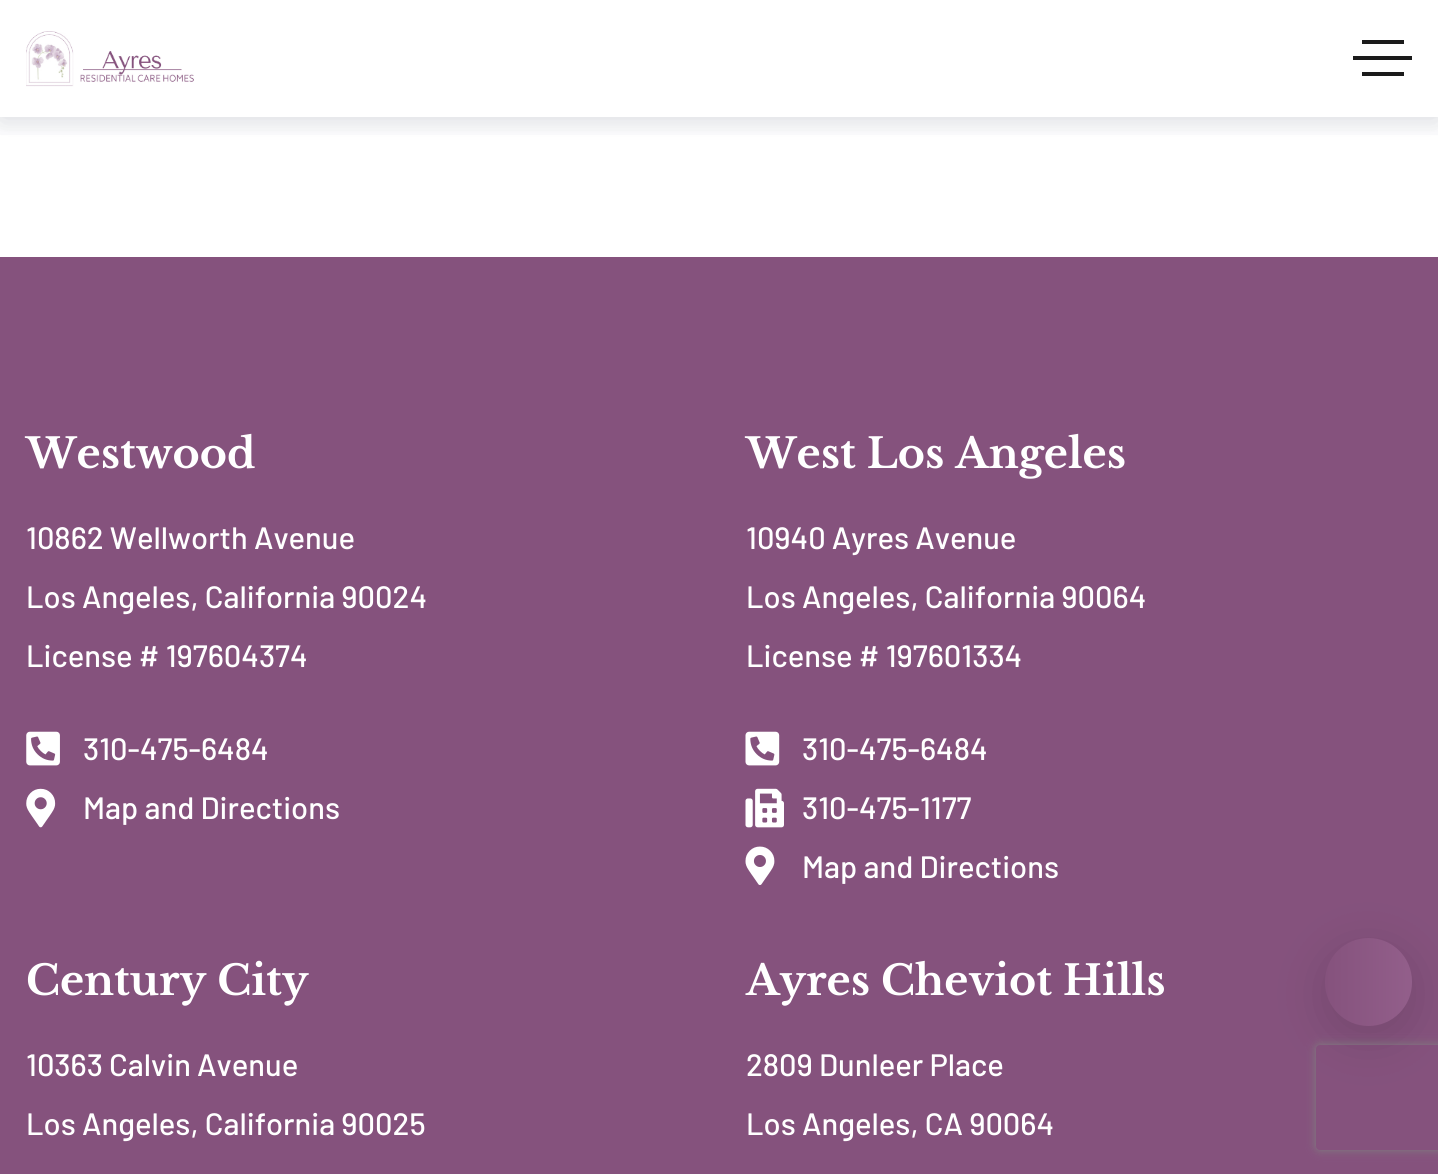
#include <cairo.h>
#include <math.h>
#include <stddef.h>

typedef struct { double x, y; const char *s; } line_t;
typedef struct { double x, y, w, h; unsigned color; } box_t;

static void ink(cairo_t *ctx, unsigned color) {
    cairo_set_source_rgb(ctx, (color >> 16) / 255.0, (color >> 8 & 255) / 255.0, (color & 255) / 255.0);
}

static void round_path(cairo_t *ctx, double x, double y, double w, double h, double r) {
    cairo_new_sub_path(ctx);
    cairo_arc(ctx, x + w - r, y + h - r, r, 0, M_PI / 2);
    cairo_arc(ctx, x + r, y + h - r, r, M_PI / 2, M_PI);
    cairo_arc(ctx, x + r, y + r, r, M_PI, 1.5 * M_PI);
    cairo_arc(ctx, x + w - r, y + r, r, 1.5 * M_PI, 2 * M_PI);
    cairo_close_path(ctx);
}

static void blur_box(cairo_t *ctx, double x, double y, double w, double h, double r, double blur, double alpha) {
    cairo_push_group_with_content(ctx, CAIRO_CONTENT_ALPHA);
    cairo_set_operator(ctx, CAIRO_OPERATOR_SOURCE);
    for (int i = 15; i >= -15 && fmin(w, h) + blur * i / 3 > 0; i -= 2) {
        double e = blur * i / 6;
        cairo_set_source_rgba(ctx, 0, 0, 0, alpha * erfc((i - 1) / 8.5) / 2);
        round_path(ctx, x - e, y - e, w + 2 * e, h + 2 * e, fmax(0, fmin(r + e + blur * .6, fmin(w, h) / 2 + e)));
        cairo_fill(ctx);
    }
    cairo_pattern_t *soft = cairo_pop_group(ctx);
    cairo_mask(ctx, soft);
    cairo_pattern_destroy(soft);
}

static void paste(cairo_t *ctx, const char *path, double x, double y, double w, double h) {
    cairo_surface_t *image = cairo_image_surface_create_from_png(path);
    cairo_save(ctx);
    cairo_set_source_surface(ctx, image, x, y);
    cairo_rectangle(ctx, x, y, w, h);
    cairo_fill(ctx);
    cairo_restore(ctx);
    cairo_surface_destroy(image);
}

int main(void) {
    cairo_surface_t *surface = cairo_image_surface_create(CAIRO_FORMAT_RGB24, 1438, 1174);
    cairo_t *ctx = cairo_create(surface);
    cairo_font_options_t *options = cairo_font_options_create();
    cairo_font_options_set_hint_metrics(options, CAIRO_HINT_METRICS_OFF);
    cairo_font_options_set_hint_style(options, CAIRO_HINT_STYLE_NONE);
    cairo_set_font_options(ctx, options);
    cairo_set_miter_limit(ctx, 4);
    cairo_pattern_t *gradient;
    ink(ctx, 0xFFFFFF);
    cairo_paint(ctx);
    ink(ctx, 0x000000);
    blur_box(ctx, 0, 0, 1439, 117, 0, 13, 0.08);
    ink(ctx, 0xFFFFFF);
    cairo_rectangle(ctx, 0, 0, 1438, 117);
    cairo_fill(ctx);
    cairo_save(ctx);
    cairo_rectangle(ctx, 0, 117, 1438, 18);
    cairo_clip(ctx);
    ink(ctx, 0x02154E);
    blur_box(ctx, 0, 5, 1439, 118, 0, 16, 0.09);
    cairo_restore(ctx);
    paste(ctx, "media/1.png", 26, 31, 168, 56);
    {
        static const box_t items[] = {
            {1362, 40, 42, 4, 0x1B1B1B},
            {1353, 56, 59, 4, 0x1B1B1B},
            {1362, 72, 42, 4, 0x1B1B1B},
            {0, 257, 1438, 917, 0x85527D},
        };
        for (size_t i = 0; i < sizeof items / sizeof *items; i++) {
            ink(ctx, items[i].color);
            cairo_rectangle(ctx, items[i].x, items[i].y, items[i].w, items[i].h);
            cairo_fill(ctx);
        }
    }
    cairo_select_font_face(ctx, "Libre Baskerville", CAIRO_FONT_SLANT_NORMAL, CAIRO_FONT_WEIGHT_BOLD);
    cairo_set_font_size(ctx, 41.25);
    ink(ctx, 0xFFFFFF);
    cairo_move_to(ctx, 26, 468);
    cairo_show_text(ctx, "Westwood");
    cairo_select_font_face(ctx, "Barlow Medium", CAIRO_FONT_SLANT_NORMAL, CAIRO_FONT_WEIGHT_NORMAL);
    cairo_set_font_size(ctx, 30.9);
    {
        static const line_t items[] = {
            {26, 549, "10862 Wellworth Avenue"},
            {26, 608, "Los Angeles, California 90024"},
            {26, 667, "License # 197604374"},
        };
        for (size_t i = 0; i < sizeof items / sizeof *items; i++) {
            cairo_move_to(ctx, items[i].x, items[i].y);
            cairo_show_text(ctx, items[i].s);
        }
    }
    paste(ctx, "media/2.png", 26, 731, 34, 35);
    cairo_move_to(ctx, 83, 760);
    cairo_show_text(ctx, "310-475-6484");
    paste(ctx, "media/3.png", 26, 788, 30, 40);
    cairo_move_to(ctx, 83, 819);
    cairo_show_text(ctx, "Map and Directions");
    cairo_select_font_face(ctx, "Libre Baskerville", CAIRO_FONT_SLANT_NORMAL, CAIRO_FONT_WEIGHT_BOLD);
    cairo_set_font_size(ctx, 41.25);
    cairo_move_to(ctx, 746, 468);
    cairo_show_text(ctx, "West Los Angeles");
    cairo_select_font_face(ctx, "Barlow Medium", CAIRO_FONT_SLANT_NORMAL, CAIRO_FONT_WEIGHT_NORMAL);
    cairo_set_font_size(ctx, 30.9);
    {
        static const line_t items[] = {
            {746, 549, "10940 Ayres Avenue"},
            {746, 608, "Los Angeles, California 90064"},
            {746, 667, "License # 197601334"},
        };
        for (size_t i = 0; i < sizeof items / sizeof *items; i++) {
            cairo_move_to(ctx, items[i].x, items[i].y);
            cairo_show_text(ctx, items[i].s);
        }
    }
    paste(ctx, "media/4.png", 745, 731, 35, 35);
    cairo_move_to(ctx, 802, 760);
    cairo_show_text(ctx, "310-475-6484");
    paste(ctx, "media/5.png", 745, 788, 39, 40);
    cairo_move_to(ctx, 802, 819);
    cairo_show_text(ctx, "310-475-1177");
    paste(ctx, "media/6.png", 745, 846, 30, 39);
    cairo_move_to(ctx, 802, 878);
    cairo_show_text(ctx, "Map and Directions");
    cairo_select_font_face(ctx, "Libre Baskerville", CAIRO_FONT_SLANT_NORMAL, CAIRO_FONT_WEIGHT_BOLD);
    cairo_set_font_size(ctx, 41.25);
    cairo_move_to(ctx, 26, 995);
    cairo_show_text(ctx, "Century City");
    cairo_select_font_face(ctx, "Barlow Medium", CAIRO_FONT_SLANT_NORMAL, CAIRO_FONT_WEIGHT_NORMAL);
    cairo_set_font_size(ctx, 30.9);
    cairo_move_to(ctx, 26, 1076);
    cairo_show_text(ctx, "10363 Calvin Avenue");
    cairo_move_to(ctx, 26, 1135);
    cairo_show_text(ctx, "Los Angeles, California 90025");
    cairo_select_font_face(ctx, "Libre Baskerville", CAIRO_FONT_SLANT_NORMAL, CAIRO_FONT_WEIGHT_BOLD);
    cairo_set_font_size(ctx, 41.25);
    cairo_move_to(ctx, 746, 995);
    cairo_show_text(ctx, "Ayres Cheviot Hills");
    cairo_select_font_face(ctx, "Barlow Medium", CAIRO_FONT_SLANT_NORMAL, CAIRO_FONT_WEIGHT_NORMAL);
    cairo_set_font_size(ctx, 30.9);
    cairo_move_to(ctx, 746, 1076);
    cairo_show_text(ctx, "2809 Dunleer Place");
    cairo_move_to(ctx, 746, 1135);
    cairo_show_text(ctx, "Los Angeles, CA 90064");
    ink(ctx, 0x000000);
    blur_box(ctx, 1325, 950, 87, 88, 43.5, 26, 0.12);
    gradient = cairo_pattern_create_linear(1325, 982, 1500, 982);
    cairo_pattern_add_color_stop_rgba(gradient, 0, 0.522, 0.322, 0.49, 1);
    cairo_pattern_add_color_stop_rgba(gradient, 0.51, 0.576, 0.373, 0.545, 1);
    cairo_pattern_add_color_stop_rgba(gradient, 1, 0.522, 0.322, 0.49, 1);
    cairo_set_source(ctx, gradient);
    cairo_pattern_destroy(gradient);
    round_path(ctx, 1325, 938, 87, 88, 43.5);
    cairo_fill(ctx);
    cairo_save(ctx);
    cairo_set_fill_rule(ctx, CAIRO_FILL_RULE_EVEN_ODD);
    cairo_new_path(ctx);
    cairo_move_to(ctx, 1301, 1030);
    cairo_line_to(ctx, 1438, 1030);
    cairo_line_to(ctx, 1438, 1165);
    cairo_line_to(ctx, 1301, 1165);
    cairo_close_path(ctx);
    cairo_move_to(ctx, 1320, 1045);
    cairo_line_to(ctx, 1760, 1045);
    cairo_curve_to(ctx, 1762, 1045, 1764, 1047, 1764, 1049);
    cairo_line_to(ctx, 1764, 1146);
    cairo_curve_to(ctx, 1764, 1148, 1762, 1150, 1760, 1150);
    cairo_line_to(ctx, 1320, 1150);
    cairo_curve_to(ctx, 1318, 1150, 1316, 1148, 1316, 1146);
    cairo_line_to(ctx, 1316, 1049);
    cairo_curve_to(ctx, 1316, 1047, 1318, 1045, 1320, 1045);
    cairo_close_path(ctx);
    cairo_clip(ctx);
    ink(ctx, 0x808080);
    blur_box(ctx, 1316, 1045, 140, 105, 4, 4.5, 1);
    cairo_restore(ctx);
    cairo_surface_write_to_png(surface, "image.png");
    cairo_font_options_destroy(options);
    cairo_destroy(ctx);
    cairo_surface_destroy(surface);
    return 0;
}
